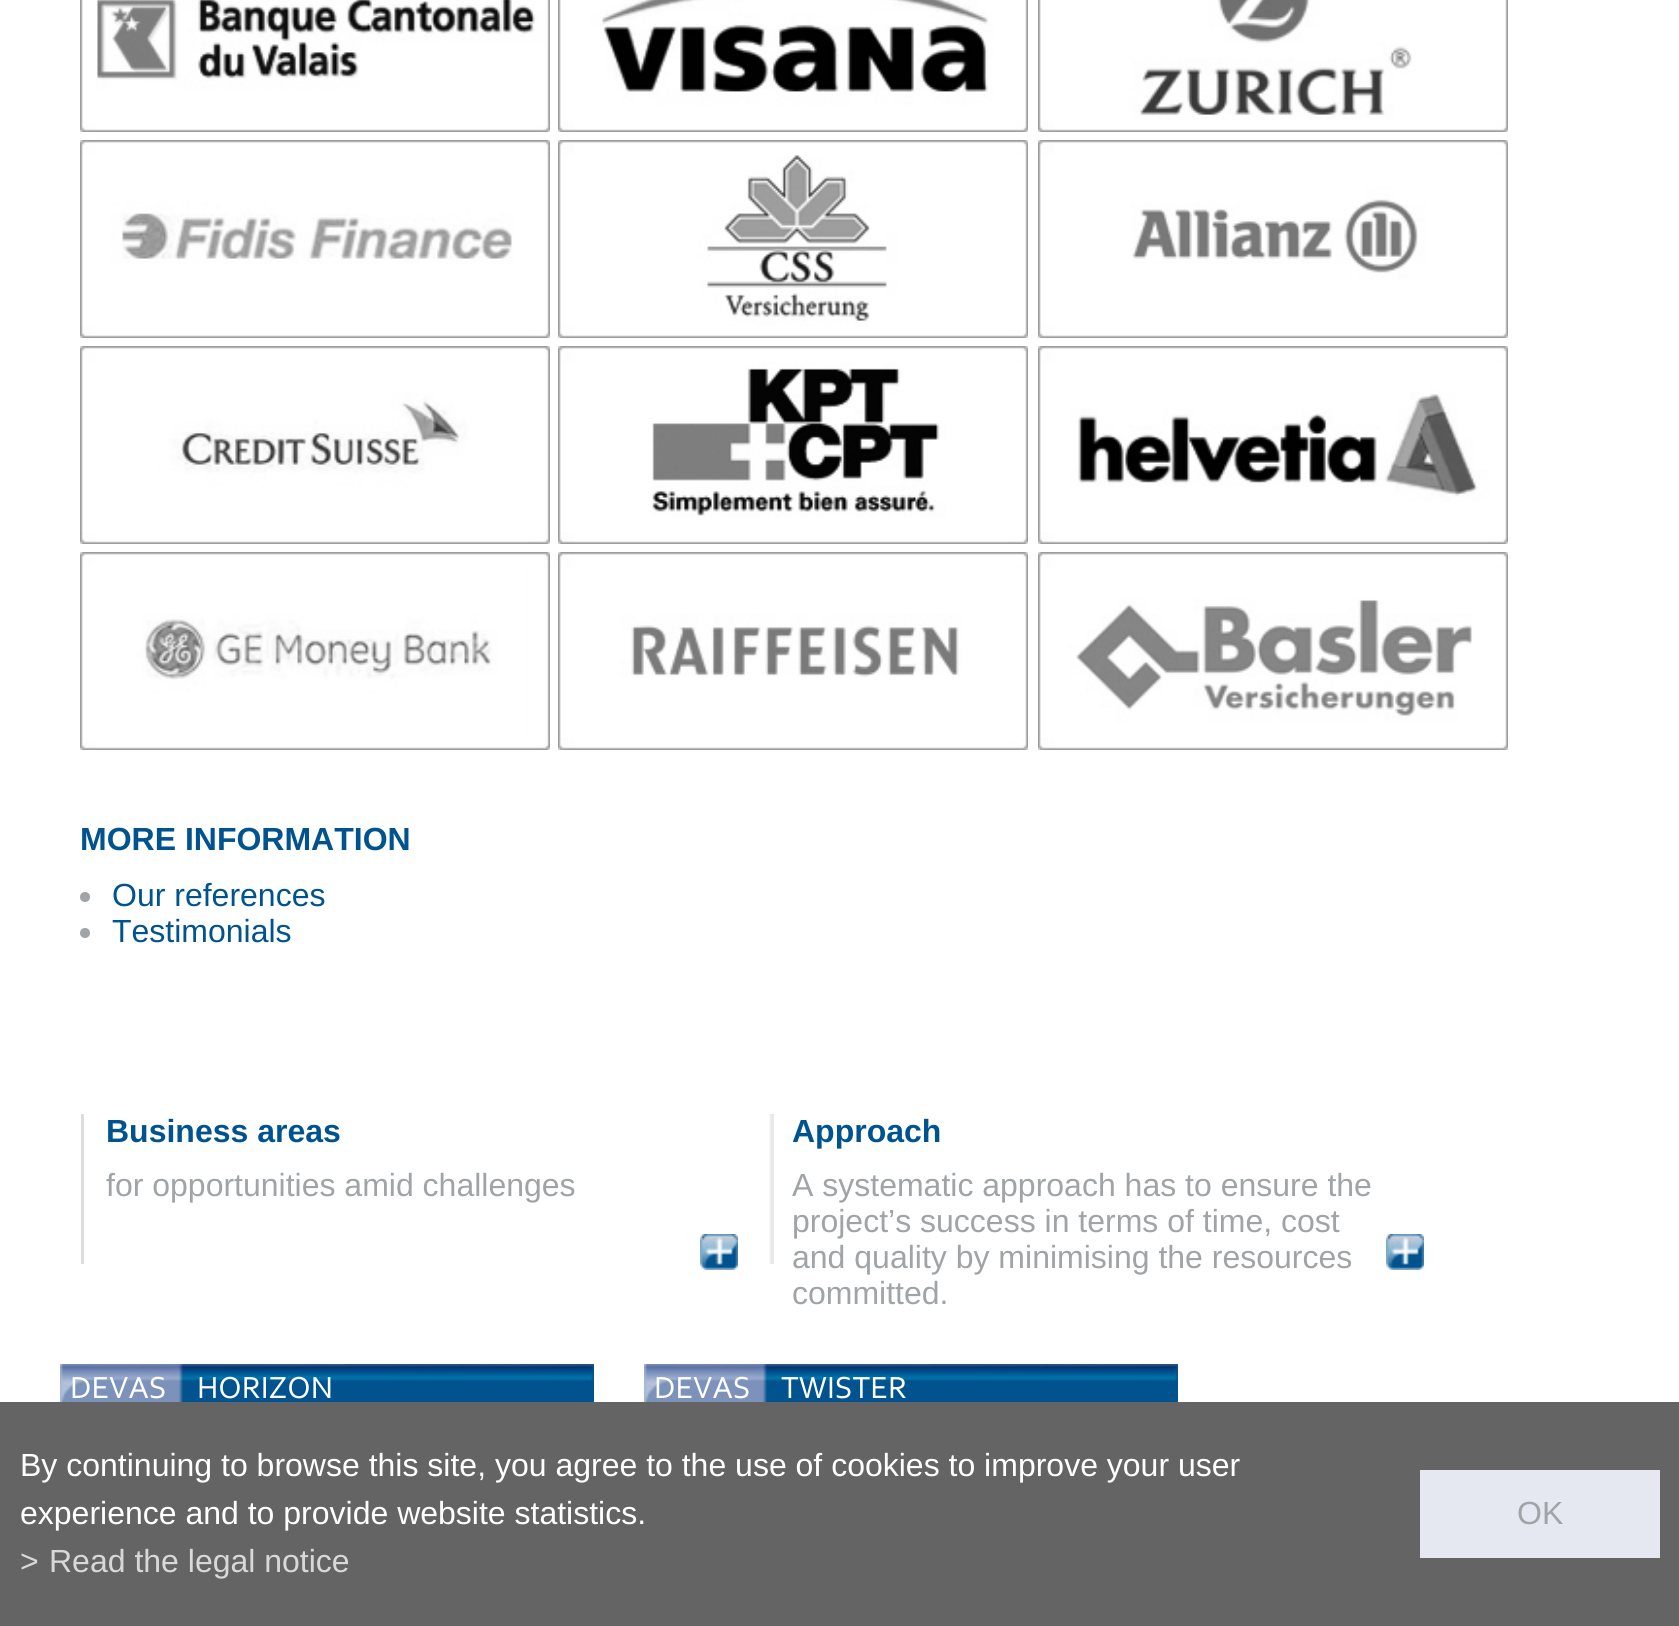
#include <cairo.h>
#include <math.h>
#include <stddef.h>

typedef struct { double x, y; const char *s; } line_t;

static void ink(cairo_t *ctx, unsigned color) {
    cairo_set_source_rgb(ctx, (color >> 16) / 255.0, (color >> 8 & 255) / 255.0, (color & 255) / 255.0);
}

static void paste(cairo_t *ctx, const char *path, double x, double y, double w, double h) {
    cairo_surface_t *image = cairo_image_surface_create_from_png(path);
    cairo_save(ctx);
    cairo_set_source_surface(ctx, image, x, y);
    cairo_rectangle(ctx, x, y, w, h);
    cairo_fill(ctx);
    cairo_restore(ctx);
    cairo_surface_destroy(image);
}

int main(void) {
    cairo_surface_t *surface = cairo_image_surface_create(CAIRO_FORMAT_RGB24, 1679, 1626);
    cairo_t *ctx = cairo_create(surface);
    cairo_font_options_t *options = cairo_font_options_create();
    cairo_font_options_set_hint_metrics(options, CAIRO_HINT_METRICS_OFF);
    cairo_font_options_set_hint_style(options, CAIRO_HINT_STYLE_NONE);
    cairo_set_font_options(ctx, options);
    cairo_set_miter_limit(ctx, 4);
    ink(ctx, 0xFFFFFF);
    cairo_paint(ctx);
    paste(ctx, "media/1.png", 80, 0, 470, 132);
    paste(ctx, "media/2.png", 558, 0, 470, 132);
    paste(ctx, "media/3.png", 1038, 0, 470, 132);
    paste(ctx, "media/4.png", 80, 140, 470, 198);
    paste(ctx, "media/5.png", 558, 140, 470, 198);
    paste(ctx, "media/6.png", 1038, 140, 470, 198);
    paste(ctx, "media/7.png", 80, 346, 470, 198);
    paste(ctx, "media/8.png", 558, 346, 470, 198);
    paste(ctx, "media/9.png", 1038, 346, 470, 198);
    paste(ctx, "media/10.png", 80, 552, 470, 198);
    paste(ctx, "media/11.png", 558, 552, 470, 198);
    paste(ctx, "media/12.png", 1038, 552, 470, 198);
    cairo_select_font_face(ctx, "Liberation Sans", CAIRO_FONT_SLANT_NORMAL, CAIRO_FONT_WEIGHT_BOLD);
    cairo_set_font_size(ctx, 32);
    ink(ctx, 0x00538E);
    cairo_move_to(ctx, 80, 850);
    cairo_show_text(ctx, "MORE INFORMATION");
    ink(ctx, 0xA0A4A7);
    cairo_new_path(ctx);
    cairo_arc(ctx, 85, 897, 5, 0, 2 * M_PI);
    cairo_fill(ctx);
    cairo_select_font_face(ctx, "Liberation Sans", CAIRO_FONT_SLANT_NORMAL, CAIRO_FONT_WEIGHT_NORMAL);
    ink(ctx, 0x00538E);
    cairo_move_to(ctx, 112, 906);
    cairo_show_text(ctx, "Our references");
    ink(ctx, 0xA0A4A7);
    cairo_new_path(ctx);
    cairo_arc(ctx, 85, 933, 5, 0, 2 * M_PI);
    cairo_fill(ctx);
    ink(ctx, 0x00538E);
    cairo_move_to(ctx, 112, 942);
    cairo_show_text(ctx, "Testimonials");
    ink(ctx, 0xDCDDDE);
    cairo_rectangle(ctx, 81, 1114, 3, 150);
    cairo_fill(ctx);
    cairo_select_font_face(ctx, "Liberation Sans", CAIRO_FONT_SLANT_NORMAL, CAIRO_FONT_WEIGHT_BOLD);
    ink(ctx, 0x00538E);
    cairo_move_to(ctx, 106, 1142);
    cairo_show_text(ctx, "Business areas");
    cairo_select_font_face(ctx, "Liberation Sans", CAIRO_FONT_SLANT_NORMAL, CAIRO_FONT_WEIGHT_NORMAL);
    ink(ctx, 0xA0A4A7);
    cairo_move_to(ctx, 106, 1196);
    cairo_show_text(ctx, "for opportunities amid challenges");
    paste(ctx, "media/13.png", 700, 1234, 38, 36);
    paste(ctx, "media/14.png", 769, 1114, 5, 150);
    cairo_select_font_face(ctx, "Liberation Sans", CAIRO_FONT_SLANT_NORMAL, CAIRO_FONT_WEIGHT_BOLD);
    ink(ctx, 0x00538E);
    cairo_move_to(ctx, 792, 1142);
    cairo_show_text(ctx, "Approach");
    cairo_select_font_face(ctx, "Liberation Sans", CAIRO_FONT_SLANT_NORMAL, CAIRO_FONT_WEIGHT_NORMAL);
    ink(ctx, 0xA0A4A7);
    {
        static const line_t items[] = {
            {792, 1196, "A systematic approach has to ensure the"},
            {792, 1232, "project’s success in terms of time, cost"},
            {792, 1268, "and quality by minimising the resources"},
            {792, 1304, "committed."},
        };
        for (size_t i = 0; i < sizeof items / sizeof *items; i++) {
            cairo_move_to(ctx, items[i].x, items[i].y);
            cairo_show_text(ctx, items[i].s);
        }
    }
    paste(ctx, "media/13.png", 1386, 1234, 38, 36);
    paste(ctx, "media/15.png", 60, 1364, 534, 38);
    cairo_select_font_face(ctx, "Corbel", CAIRO_FONT_SLANT_NORMAL, CAIRO_FONT_WEIGHT_NORMAL);
    ink(ctx, 0xFFFFFF);
    cairo_move_to(ctx, 70, 1398);
    cairo_show_text(ctx, "DEVAS");
    cairo_move_to(ctx, 197, 1398);
    cairo_show_text(ctx, "HORIZON");
    paste(ctx, "media/15.png", 644, 1364, 534, 38);
    cairo_move_to(ctx, 654, 1398);
    cairo_show_text(ctx, "DEVAS");
    cairo_move_to(ctx, 781, 1398);
    cairo_show_text(ctx, "TWISTER");
    ink(ctx, 0x656464);
    cairo_rectangle(ctx, 0, 1402, 1679, 224);
    cairo_fill(ctx);
    cairo_select_font_face(ctx, "Liberation Sans", CAIRO_FONT_SLANT_NORMAL, CAIRO_FONT_WEIGHT_NORMAL);
    ink(ctx, 0xFFFFFF);
    cairo_move_to(ctx, 20, 1476);
    cairo_show_text(ctx, "By continuing to browse this site, you agree to the use of cookies to improve your user");
    cairo_move_to(ctx, 20, 1524);
    cairo_show_text(ctx, "experience and to provide website statistics.");
    ink(ctx, 0xE6E8F1);
    cairo_rectangle(ctx, 1420, 1470, 240, 88);
    cairo_fill(ctx);
    ink(ctx, 0xA0A4A7);
    cairo_move_to(ctx, 1517, 1524);
    cairo_show_text(ctx, "OK");
    ink(ctx, 0xD9D8D8);
    cairo_move_to(ctx, 20, 1572);
    cairo_show_text(ctx, ">");
    cairo_move_to(ctx, 49, 1572);
    cairo_show_text(ctx, "Read the legal notice");
    cairo_surface_write_to_png(surface, "image.png");
    cairo_font_options_destroy(options);
    cairo_destroy(ctx);
    cairo_surface_destroy(surface);
    return 0;
}
